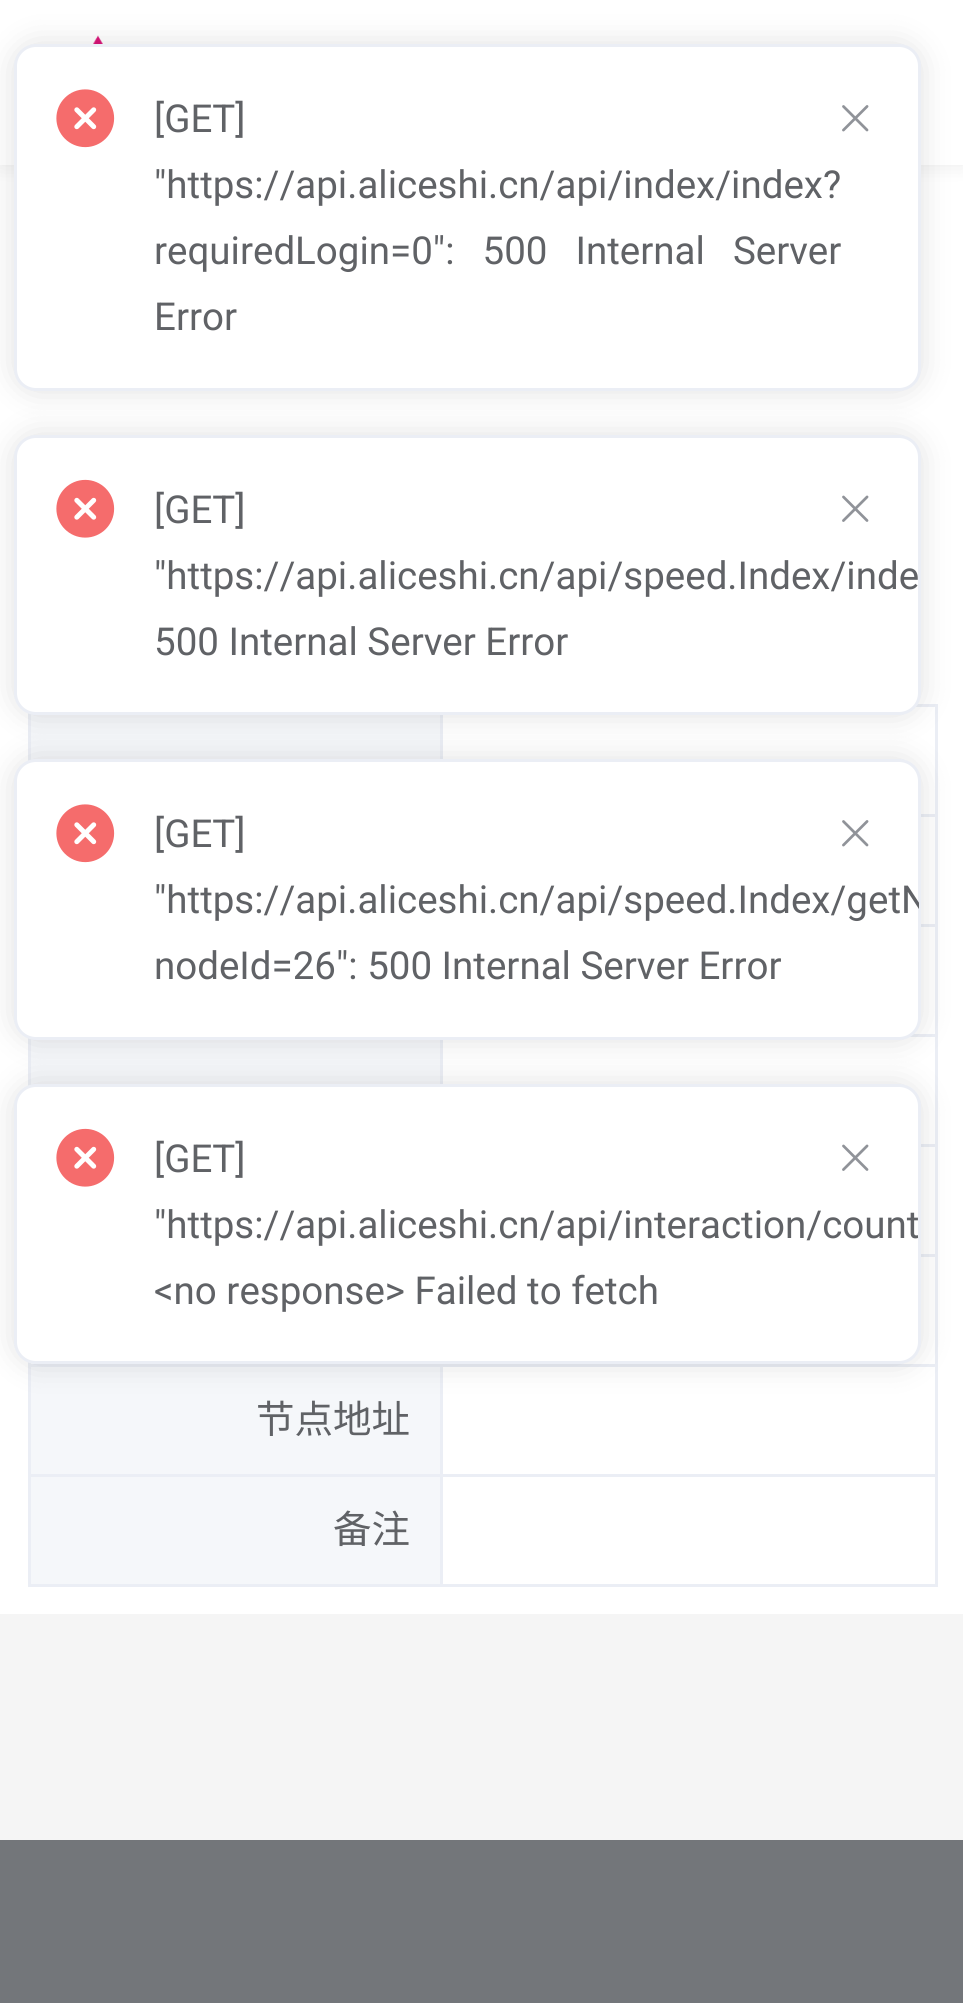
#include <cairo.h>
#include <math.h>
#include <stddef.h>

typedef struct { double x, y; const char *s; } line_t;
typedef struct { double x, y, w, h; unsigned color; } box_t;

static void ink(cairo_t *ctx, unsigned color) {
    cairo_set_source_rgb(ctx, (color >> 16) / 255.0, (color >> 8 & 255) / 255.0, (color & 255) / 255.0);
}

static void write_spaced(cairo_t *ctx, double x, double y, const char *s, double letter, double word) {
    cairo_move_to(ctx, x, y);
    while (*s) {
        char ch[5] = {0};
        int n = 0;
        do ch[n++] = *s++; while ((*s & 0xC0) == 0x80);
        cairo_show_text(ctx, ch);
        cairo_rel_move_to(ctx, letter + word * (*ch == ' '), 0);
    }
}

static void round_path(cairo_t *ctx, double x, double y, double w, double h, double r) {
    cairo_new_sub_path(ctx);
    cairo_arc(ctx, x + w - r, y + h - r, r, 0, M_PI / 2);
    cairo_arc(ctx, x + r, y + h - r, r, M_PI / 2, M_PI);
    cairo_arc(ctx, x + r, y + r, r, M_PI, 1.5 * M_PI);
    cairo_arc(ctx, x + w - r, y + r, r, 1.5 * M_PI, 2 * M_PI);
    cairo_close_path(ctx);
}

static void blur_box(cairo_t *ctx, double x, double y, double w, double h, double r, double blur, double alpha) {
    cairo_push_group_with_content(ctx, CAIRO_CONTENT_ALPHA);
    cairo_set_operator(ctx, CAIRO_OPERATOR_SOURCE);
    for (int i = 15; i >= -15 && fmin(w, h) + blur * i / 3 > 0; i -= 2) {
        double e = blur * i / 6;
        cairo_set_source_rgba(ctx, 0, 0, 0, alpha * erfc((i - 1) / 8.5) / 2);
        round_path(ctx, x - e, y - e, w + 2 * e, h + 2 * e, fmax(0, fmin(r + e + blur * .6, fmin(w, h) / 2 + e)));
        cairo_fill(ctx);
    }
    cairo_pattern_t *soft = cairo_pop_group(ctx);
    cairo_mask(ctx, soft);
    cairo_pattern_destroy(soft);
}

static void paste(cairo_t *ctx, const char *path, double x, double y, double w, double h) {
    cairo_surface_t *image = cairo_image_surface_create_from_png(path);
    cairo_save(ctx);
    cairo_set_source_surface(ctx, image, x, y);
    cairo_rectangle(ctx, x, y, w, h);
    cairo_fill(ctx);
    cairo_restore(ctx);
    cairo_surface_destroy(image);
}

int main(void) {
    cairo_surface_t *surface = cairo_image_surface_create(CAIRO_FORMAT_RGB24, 963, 2003);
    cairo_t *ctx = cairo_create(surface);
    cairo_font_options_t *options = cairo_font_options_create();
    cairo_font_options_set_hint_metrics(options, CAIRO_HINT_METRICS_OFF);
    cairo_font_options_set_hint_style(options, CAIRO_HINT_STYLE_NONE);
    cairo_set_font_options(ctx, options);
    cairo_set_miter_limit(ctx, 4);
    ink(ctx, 0xF5F5F5);
    cairo_paint(ctx);
    ink(ctx, 0xFFFFFF);
    cairo_rectangle(ctx, 0, 165, 963, 1449);
    cairo_fill(ctx);
    ink(ctx, 0x000000);
    blur_box(ctx, 0, 0, 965, 165, 0, 11, 0.08);
    ink(ctx, 0xFFFFFF);
    cairo_rectangle(ctx, 0, 0, 963, 165);
    cairo_fill(ctx);
    paste(ctx, "media/5.png", 93, 35, 10, 9);
    ink(ctx, 0x000000);
    blur_box(ctx, 14, 44, 907, 347, 22, 16.5, 0.12);
    ink(ctx, 0xFFFFFF);
    round_path(ctx, 15.5, 45.5, 904, 344, 20.5);
    cairo_fill_preserve(ctx);
    ink(ctx, 0xEBEEF5);
    cairo_set_line_width(ctx, 3);
    cairo_stroke(ctx);
    paste(ctx, "media/1.png", 56, 89, 59, 59);
    cairo_select_font_face(ctx, "Roboto", CAIRO_FONT_SLANT_NORMAL, CAIRO_FONT_WEIGHT_NORMAL);
    cairo_set_font_size(ctx, 38.5);
    ink(ctx, 0x606266);
    cairo_move_to(ctx, 154, 132);
    cairo_show_text(ctx, "[GET]");
    cairo_move_to(ctx, 154, 198);
    cairo_show_text(ctx, "\"https://api.aliceshi.cn/api/index/index?");
    write_spaced(ctx, 154, 264, "requiredLogin=0\": 500 Internal Server", 0, 18.5);
    cairo_move_to(ctx, 154, 330);
    cairo_show_text(ctx, "Error");
    paste(ctx, "media/2.png", 842, 105, 27, 27);
    {
        static const box_t items[] = {
            {31, 714, 409, 46, 0xF5F7FA},
            {28, 713, 3, 48, 0xEBEEF5},
            {916, 704, 22, 3, 0xEBEEF5},
            {921, 814, 17, 3, 0xEBEEF5},
            {921, 924, 17, 3, 0xEBEEF5},
            {910, 1034, 28, 3, 0xEBEEF5},
            {921, 1144, 17, 3, 0xEBEEF5},
            {921, 1254, 17, 3, 0xEBEEF5},
            {440, 1364, 498, 3, 0xEBEEF5},
            {440, 1474, 498, 3, 0xEBEEF5},
            {935, 1474, 3, 113, 0xEBEEF5},
            {935, 1364, 3, 113, 0xEBEEF5},
            {935, 1254, 3, 113, 0xEBEEF5},
            {935, 1144, 3, 113, 0xEBEEF5},
            {935, 1034, 3, 113, 0xEBEEF5},
            {935, 924, 3, 113, 0xEBEEF5},
            {935, 814, 3, 113, 0xEBEEF5},
            {935, 704, 3, 113, 0xEBEEF5},
            {440, 715, 3, 44, 0xEBEEF5},
        };
        for (size_t i = 0; i < sizeof items / sizeof *items; i++) {
            ink(ctx, items[i].color);
            cairo_rectangle(ctx, items[i].x, items[i].y, items[i].w, items[i].h);
            cairo_fill(ctx);
        }
    }
    ink(ctx, 0x000000);
    blur_box(ctx, 14, 435, 907, 280, 22, 16.5, 0.12);
    ink(ctx, 0xFFFFFF);
    round_path(ctx, 15.5, 436.5, 904, 277, 20.5);
    cairo_fill_preserve(ctx);
    ink(ctx, 0xEBEEF5);
    cairo_stroke(ctx);
    paste(ctx, "media/3.png", 56, 479, 59, 59);
    ink(ctx, 0x606266);
    {
        static const line_t items[] = {
            {154, 523, "[GET]"},
            {154, 589, "\"https://api.aliceshi.cn/api/speed.Index/inde"},
            {154, 655, "500 Internal Server Error"},
        };
        for (size_t i = 0; i < sizeof items / sizeof *items; i++) {
            cairo_move_to(ctx, items[i].x, items[i].y);
            cairo_show_text(ctx, items[i].s);
        }
    }
    paste(ctx, "media/4.png", 842, 495, 27, 27);
    {
        static const box_t items[] = {
            {31, 1039, 409, 46, 0xF5F7FA},
            {28, 1034, 3, 52, 0xEBEEF5},
            {440, 1034, 3, 50, 0xEBEEF5},
        };
        for (size_t i = 0; i < sizeof items / sizeof *items; i++) {
            ink(ctx, items[i].color);
            cairo_rectangle(ctx, items[i].x, items[i].y, items[i].w, items[i].h);
            cairo_fill(ctx);
        }
    }
    ink(ctx, 0x000000);
    blur_box(ctx, 14, 759, 907, 281, 22, 16.5, 0.12);
    ink(ctx, 0xFFFFFF);
    round_path(ctx, 15.5, 760.5, 904, 278, 20.5);
    cairo_fill_preserve(ctx);
    ink(ctx, 0xEBEEF5);
    cairo_stroke(ctx);
    paste(ctx, "media/1.png", 56, 804, 59, 59);
    ink(ctx, 0x606266);
    cairo_move_to(ctx, 154, 847);
    cairo_show_text(ctx, "[GET]");
    cairo_save(ctx);
    round_path(ctx, 17, 762, 902, 275, 19);
    cairo_clip(ctx);
    cairo_move_to(ctx, 154, 913);
    cairo_show_text(ctx, "\"https://api.aliceshi.cn/api/speed.Index/getN");
    cairo_restore(ctx);
    cairo_move_to(ctx, 154, 979);
    cairo_show_text(ctx, "nodeId=26\": 500 Internal Server Error");
    paste(ctx, "media/2.png", 842, 820, 27, 27);
    {
        static const box_t items[] = {
            {31, 1367, 409, 107, 0xF5F7FA},
            {440, 1584, 498, 3, 0xEBEEF5},
            {440, 1474, 3, 113, 0xEBEEF5},
            {28, 1474, 415, 3, 0xEBEEF5},
            {440, 1364, 3, 113, 0xEBEEF5},
            {28, 1364, 415, 3, 0xEBEEF5},
            {28, 1584, 415, 3, 0xEBEEF5},
            {28, 1474, 3, 113, 0xEBEEF5},
            {28, 1362, 3, 115, 0xEBEEF5},
        };
        for (size_t i = 0; i < sizeof items / sizeof *items; i++) {
            ink(ctx, items[i].color);
            cairo_rectangle(ctx, items[i].x, items[i].y, items[i].w, items[i].h);
            cairo_fill(ctx);
        }
    }
    ink(ctx, 0x000000);
    blur_box(ctx, 14, 1084, 907, 280, 22, 16.5, 0.12);
    ink(ctx, 0xFFFFFF);
    round_path(ctx, 15.5, 1085.5, 904, 277, 20.5);
    cairo_fill_preserve(ctx);
    ink(ctx, 0xEBEEF5);
    cairo_stroke(ctx);
    paste(ctx, "media/3.png", 56, 1128, 59, 59);
    ink(ctx, 0x606266);
    {
        static const line_t items[] = {
            {154, 1172, "[GET]"},
            {154, 1238, "\"https://api.aliceshi.cn/api/interaction/count"},
            {154, 1304, "<no response> Failed to fetch"},
        };
        for (size_t i = 0; i < sizeof items / sizeof *items; i++) {
            cairo_move_to(ctx, items[i].x, items[i].y);
            cairo_show_text(ctx, items[i].s);
        }
    }
    paste(ctx, "media/4.png", 842, 1144, 27, 27);
    cairo_select_font_face(ctx, "Noto Sans CJK SC", CAIRO_FONT_SLANT_NORMAL, CAIRO_FONT_WEIGHT_NORMAL);
    cairo_move_to(ctx, 256, 1433);
    cairo_show_text(ctx, "节点地址");
    ink(ctx, 0xF5F7FA);
    cairo_rectangle(ctx, 31, 1477, 409, 107);
    cairo_fill(ctx);
    ink(ctx, 0x606266);
    cairo_move_to(ctx, 333, 1543);
    cairo_show_text(ctx, "备注");
    ink(ctx, 0x73767A);
    cairo_rectangle(ctx, 0, 1840, 963, 163);
    cairo_fill(ctx);
    cairo_surface_write_to_png(surface, "image.png");
    cairo_font_options_destroy(options);
    cairo_destroy(ctx);
    cairo_surface_destroy(surface);
    return 0;
}
